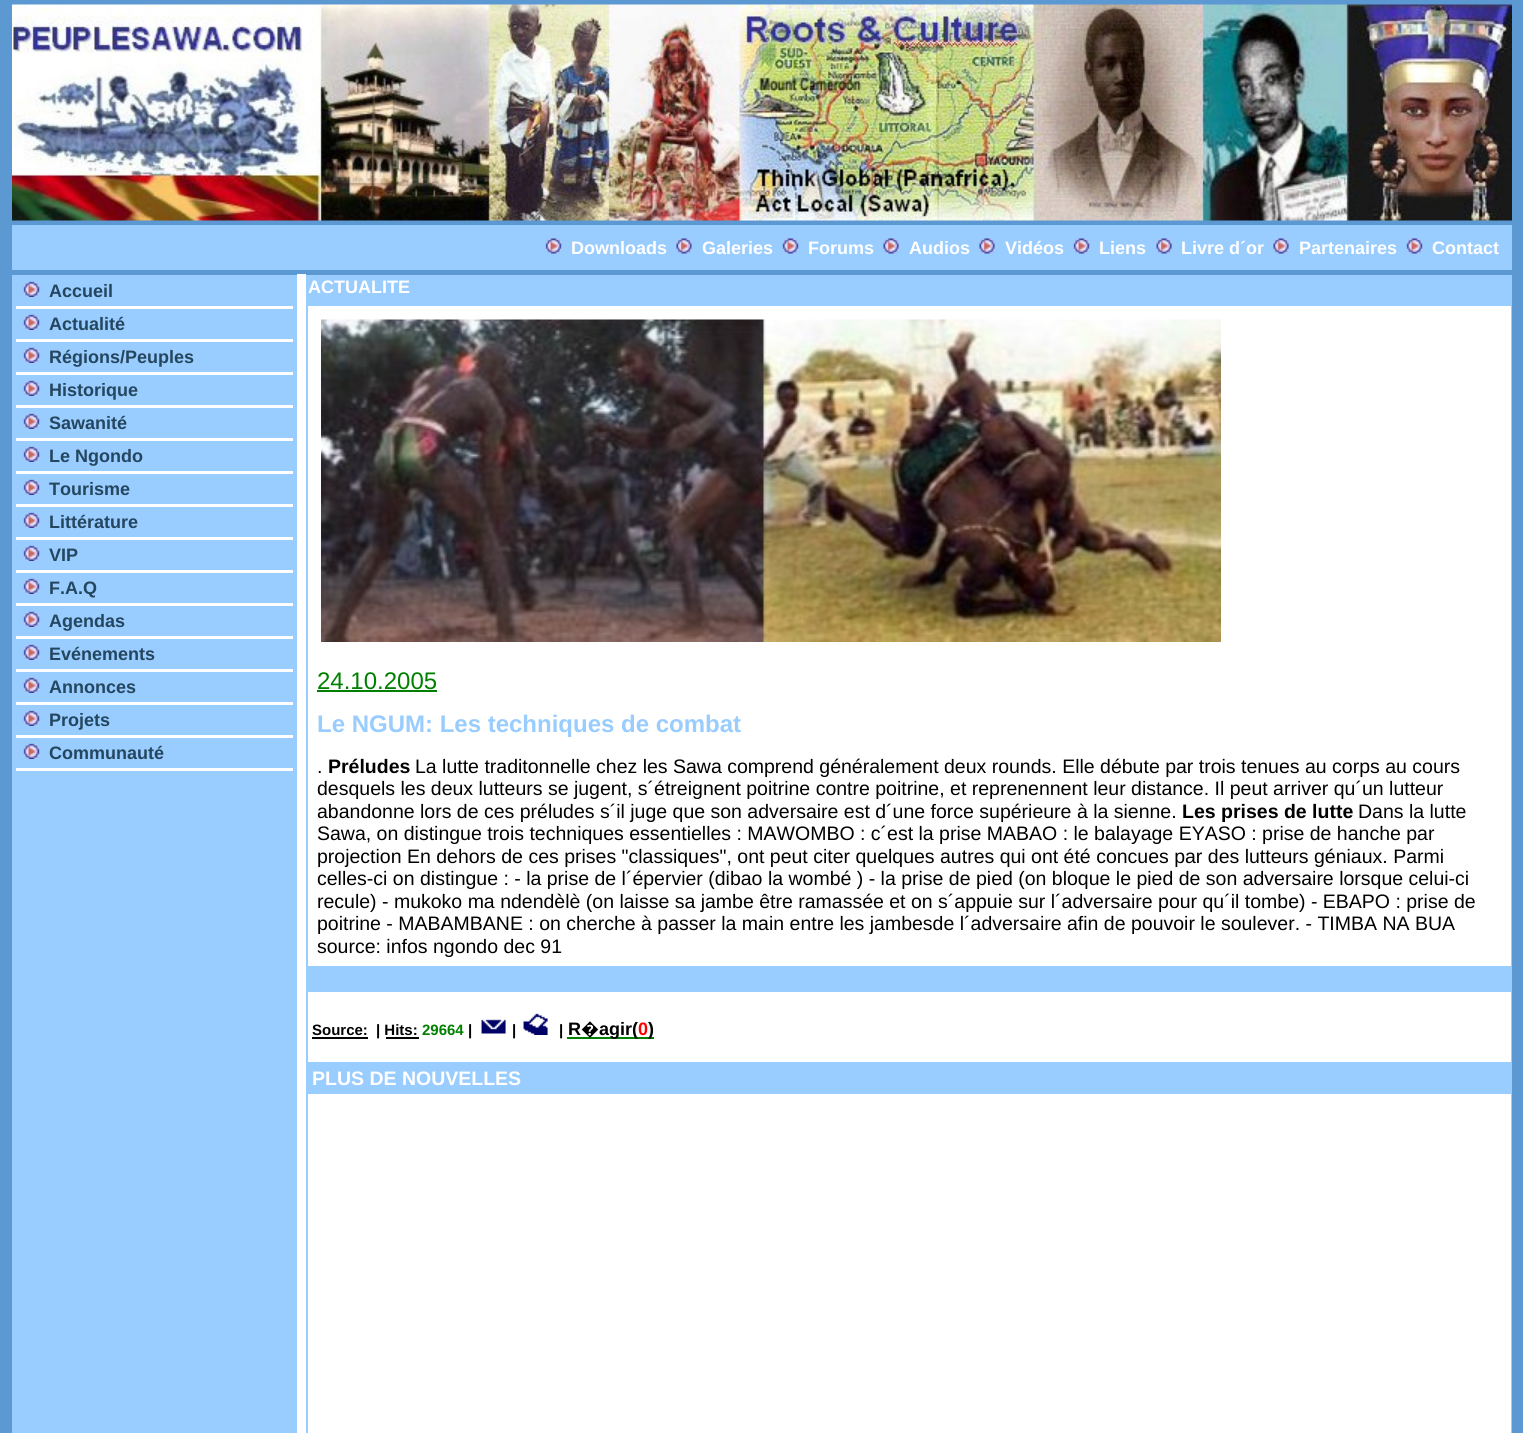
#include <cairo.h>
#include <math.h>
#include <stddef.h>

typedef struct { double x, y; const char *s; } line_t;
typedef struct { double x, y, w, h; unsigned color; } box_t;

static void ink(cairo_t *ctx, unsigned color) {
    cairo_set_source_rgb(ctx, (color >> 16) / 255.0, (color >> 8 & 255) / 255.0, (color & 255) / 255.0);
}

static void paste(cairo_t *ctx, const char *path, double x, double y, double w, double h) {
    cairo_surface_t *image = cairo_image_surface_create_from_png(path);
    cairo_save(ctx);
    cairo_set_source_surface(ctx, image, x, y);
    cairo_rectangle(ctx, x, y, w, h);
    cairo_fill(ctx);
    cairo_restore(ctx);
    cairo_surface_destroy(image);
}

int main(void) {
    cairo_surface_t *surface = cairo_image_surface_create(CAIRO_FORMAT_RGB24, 1523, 1433);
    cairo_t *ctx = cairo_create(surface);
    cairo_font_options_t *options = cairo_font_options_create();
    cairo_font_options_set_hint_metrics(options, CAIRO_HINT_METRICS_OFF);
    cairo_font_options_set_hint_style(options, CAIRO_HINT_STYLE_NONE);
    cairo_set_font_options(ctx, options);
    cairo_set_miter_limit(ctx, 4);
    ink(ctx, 0x5C99D2);
    cairo_paint(ctx);
    paste(ctx, "media/1.png", 12, 4, 1500, 217);
    ink(ctx, 0x99CCFF);
    cairo_rectangle(ctx, 12, 225, 1500, 45);
    cairo_fill(ctx);
    paste(ctx, "media/2.png", 545, 238, 17, 16);
    cairo_select_font_face(ctx, "Liberation Sans", CAIRO_FONT_SLANT_NORMAL, CAIRO_FONT_WEIGHT_BOLD);
    cairo_set_font_size(ctx, 18);
    ink(ctx, 0xFFFFFF);
    cairo_move_to(ctx, 571, 254);
    cairo_show_text(ctx, "Downloads");
    paste(ctx, "media/3.png", 676, 238, 16, 16);
    cairo_move_to(ctx, 702, 254);
    cairo_show_text(ctx, "Galeries");
    paste(ctx, "media/4.png", 782, 238, 17, 16);
    cairo_move_to(ctx, 808, 254);
    cairo_show_text(ctx, "Forums");
    paste(ctx, "media/3.png", 883, 238, 16, 16);
    cairo_move_to(ctx, 909, 254);
    cairo_show_text(ctx, "Audios");
    paste(ctx, "media/3.png", 979, 238, 16, 16);
    cairo_move_to(ctx, 1005, 254);
    cairo_show_text(ctx, "Vidéos");
    paste(ctx, "media/4.png", 1073, 238, 17, 16);
    cairo_move_to(ctx, 1099, 254);
    cairo_show_text(ctx, "Liens");
    paste(ctx, "media/5.png", 1156, 238, 16, 16);
    cairo_move_to(ctx, 1181, 254);
    cairo_show_text(ctx, "Livre d´or");
    paste(ctx, "media/3.png", 1273, 238, 16, 16);
    cairo_move_to(ctx, 1299, 254);
    cairo_show_text(ctx, "Partenaires");
    paste(ctx, "media/2.png", 1406, 238, 17, 16);
    cairo_move_to(ctx, 1432, 254);
    cairo_show_text(ctx, "Contact");
    ink(ctx, 0x99CCFF);
    cairo_rectangle(ctx, 12, 275, 285, 1158);
    cairo_fill(ctx);
    paste(ctx, "media/6.png", 23, 281, 17, 16);
    ink(ctx, 0x24465E);
    cairo_move_to(ctx, 49, 297);
    cairo_show_text(ctx, "Accueil");
    ink(ctx, 0xFFFFFF);
    cairo_rectangle(ctx, 16, 306, 277, 3);
    cairo_fill(ctx);
    paste(ctx, "media/6.png", 23, 314, 17, 16);
    ink(ctx, 0x24465E);
    cairo_move_to(ctx, 49, 330);
    cairo_show_text(ctx, "Actualité");
    ink(ctx, 0xFFFFFF);
    cairo_rectangle(ctx, 16, 339, 277, 3);
    cairo_fill(ctx);
    paste(ctx, "media/6.png", 23, 347, 17, 16);
    ink(ctx, 0x24465E);
    cairo_move_to(ctx, 49, 363);
    cairo_show_text(ctx, "Régions/Peuples");
    ink(ctx, 0xFFFFFF);
    cairo_rectangle(ctx, 16, 372, 277, 3);
    cairo_fill(ctx);
    paste(ctx, "media/6.png", 23, 380, 17, 16);
    ink(ctx, 0x24465E);
    cairo_move_to(ctx, 49, 396);
    cairo_show_text(ctx, "Historique");
    ink(ctx, 0xFFFFFF);
    cairo_rectangle(ctx, 16, 405, 277, 3);
    cairo_fill(ctx);
    paste(ctx, "media/6.png", 23, 413, 17, 16);
    ink(ctx, 0x24465E);
    cairo_move_to(ctx, 49, 429);
    cairo_show_text(ctx, "Sawanité");
    ink(ctx, 0xFFFFFF);
    cairo_rectangle(ctx, 16, 438, 277, 3);
    cairo_fill(ctx);
    paste(ctx, "media/6.png", 23, 446, 17, 16);
    ink(ctx, 0x24465E);
    cairo_move_to(ctx, 49, 462);
    cairo_show_text(ctx, "Le Ngondo");
    ink(ctx, 0xFFFFFF);
    cairo_rectangle(ctx, 16, 471, 277, 3);
    cairo_fill(ctx);
    paste(ctx, "media/6.png", 23, 479, 17, 16);
    ink(ctx, 0x24465E);
    cairo_move_to(ctx, 49, 495);
    cairo_show_text(ctx, "Tourisme");
    ink(ctx, 0xFFFFFF);
    cairo_rectangle(ctx, 16, 504, 277, 3);
    cairo_fill(ctx);
    paste(ctx, "media/6.png", 23, 512, 17, 16);
    ink(ctx, 0x24465E);
    cairo_move_to(ctx, 49, 528);
    cairo_show_text(ctx, "Littérature");
    ink(ctx, 0xFFFFFF);
    cairo_rectangle(ctx, 16, 537, 277, 3);
    cairo_fill(ctx);
    paste(ctx, "media/6.png", 23, 545, 17, 16);
    ink(ctx, 0x24465E);
    cairo_move_to(ctx, 49, 561);
    cairo_show_text(ctx, "VIP");
    ink(ctx, 0xFFFFFF);
    cairo_rectangle(ctx, 16, 570, 277, 3);
    cairo_fill(ctx);
    paste(ctx, "media/6.png", 23, 578, 17, 16);
    ink(ctx, 0x24465E);
    cairo_move_to(ctx, 49, 594);
    cairo_show_text(ctx, "F.A.Q");
    ink(ctx, 0xFFFFFF);
    cairo_rectangle(ctx, 16, 603, 277, 3);
    cairo_fill(ctx);
    paste(ctx, "media/6.png", 23, 611, 17, 16);
    ink(ctx, 0x24465E);
    cairo_move_to(ctx, 49, 627);
    cairo_show_text(ctx, "Agendas");
    ink(ctx, 0xFFFFFF);
    cairo_rectangle(ctx, 16, 636, 277, 3);
    cairo_fill(ctx);
    paste(ctx, "media/6.png", 23, 644, 17, 16);
    ink(ctx, 0x24465E);
    cairo_move_to(ctx, 49, 660);
    cairo_show_text(ctx, "Evénements");
    ink(ctx, 0xFFFFFF);
    cairo_rectangle(ctx, 16, 669, 277, 3);
    cairo_fill(ctx);
    paste(ctx, "media/6.png", 23, 677, 17, 16);
    ink(ctx, 0x24465E);
    cairo_move_to(ctx, 49, 693);
    cairo_show_text(ctx, "Annonces");
    ink(ctx, 0xFFFFFF);
    cairo_rectangle(ctx, 16, 702, 277, 3);
    cairo_fill(ctx);
    paste(ctx, "media/6.png", 23, 710, 17, 16);
    ink(ctx, 0x24465E);
    cairo_move_to(ctx, 49, 726);
    cairo_show_text(ctx, "Projets");
    ink(ctx, 0xFFFFFF);
    cairo_rectangle(ctx, 16, 735, 277, 3);
    cairo_fill(ctx);
    paste(ctx, "media/6.png", 23, 743, 17, 16);
    ink(ctx, 0x24465E);
    cairo_move_to(ctx, 49, 759);
    cairo_show_text(ctx, "Communauté");
    {
        static const box_t items[] = {
            {16, 768, 277, 3, 0xFFFFFF},
            {297, 274, 9, 1159, 0xFFFFFF},
            {306, 275, 1206, 1158, 0x99CCFF},
            {308, 306, 1203, 1127, 0xFFFFFF},
        };
        for (size_t i = 0; i < sizeof items / sizeof *items; i++) {
            ink(ctx, items[i].color);
            cairo_rectangle(ctx, items[i].x, items[i].y, items[i].w, items[i].h);
            cairo_fill(ctx);
        }
    }
    cairo_move_to(ctx, 308, 293);
    cairo_show_text(ctx, "ACTUALITE");
    paste(ctx, "media/7.png", 321, 319, 900, 323);
    cairo_select_font_face(ctx, "Liberation Sans", CAIRO_FONT_SLANT_NORMAL, CAIRO_FONT_WEIGHT_NORMAL);
    cairo_set_font_size(ctx, 24);
    ink(ctx, 0x008000);
    cairo_move_to(ctx, 317, 689);
    cairo_show_text(ctx, "24.10.2005");
    cairo_rectangle(ctx, 317, 690, 120, 2);
    cairo_fill(ctx);
    cairo_select_font_face(ctx, "Liberation Sans", CAIRO_FONT_SLANT_NORMAL, CAIRO_FONT_WEIGHT_BOLD);
    ink(ctx, 0x99CCFF);
    cairo_move_to(ctx, 317, 732);
    cairo_show_text(ctx, "Le NGUM: Les techniques de combat");
    cairo_select_font_face(ctx, "Liberation Sans", CAIRO_FONT_SLANT_NORMAL, CAIRO_FONT_WEIGHT_NORMAL);
    cairo_set_font_size(ctx, 19.5);
    ink(ctx, 0x000000);
    cairo_move_to(ctx, 317, 773);
    cairo_show_text(ctx, ".");
    cairo_select_font_face(ctx, "Liberation Sans", CAIRO_FONT_SLANT_NORMAL, CAIRO_FONT_WEIGHT_BOLD);
    cairo_move_to(ctx, 328, 773);
    cairo_show_text(ctx, "Préludes");
    cairo_select_font_face(ctx, "Liberation Sans", CAIRO_FONT_SLANT_NORMAL, CAIRO_FONT_WEIGHT_NORMAL);
    {
        static const line_t items[] = {
            {415, 773, "La lutte traditonnelle chez les Sawa comprend généralement deux rounds. Elle débute par trois tenues au corps au cours"},
            {317, 795, "desquels les deux lutteurs se jugent, s´étreignent poitrine contre poitrine, et reprenennent leur distance. Il peut arriver qu´un lutteur"},
            {317, 818, "abandonne lors de ces préludes s´il juge que son adversaire est d´une force supérieure à la sienne."},
        };
        for (size_t i = 0; i < sizeof items / sizeof *items; i++) {
            cairo_move_to(ctx, items[i].x, items[i].y);
            cairo_show_text(ctx, items[i].s);
        }
    }
    cairo_select_font_face(ctx, "Liberation Sans", CAIRO_FONT_SLANT_NORMAL, CAIRO_FONT_WEIGHT_BOLD);
    cairo_move_to(ctx, 1182, 818);
    cairo_show_text(ctx, "Les prises de lutte");
    cairo_select_font_face(ctx, "Liberation Sans", CAIRO_FONT_SLANT_NORMAL, CAIRO_FONT_WEIGHT_NORMAL);
    {
        static const line_t items[] = {
            {1358, 818, "Dans la lutte"},
            {317, 840, "Sawa, on distingue trois techniques essentielles : MAWOMBO : c´est la prise MABAO : le balayage EYASO : prise de hanche par"},
            {317, 863, "projection En dehors de ces prises \"classiques\", ont peut citer quelques autres qui ont été concues par des lutteurs géniaux. Parmi"},
            {317, 885, "celles-ci on distingue : - la prise de l´épervier (dibao la wombé ) - la prise de pied (on bloque le pied de son adversaire lorsque celui-ci"},
            {317, 908, "recule) - mukoko ma ndendèlè (on laisse sa jambe être ramassée et on s´appuie sur l´adversaire pour qu´il tombe) - EBAPO : prise de"},
            {317, 930, "poitrine - MABAMBANE : on cherche à passer la main entre les jambesde l´adversaire afin de pouvoir le soulever. - TIMBA NA BUA"},
            {317, 953, "source: infos ngondo dec 91"},
        };
        for (size_t i = 0; i < sizeof items / sizeof *items; i++) {
            cairo_move_to(ctx, items[i].x, items[i].y);
            cairo_show_text(ctx, items[i].s);
        }
    }
    ink(ctx, 0x99CCFF);
    cairo_rectangle(ctx, 308, 966, 1203, 26);
    cairo_fill(ctx);
    cairo_select_font_face(ctx, "Liberation Sans", CAIRO_FONT_SLANT_NORMAL, CAIRO_FONT_WEIGHT_BOLD);
    cairo_set_font_size(ctx, 15);
    ink(ctx, 0x000000);
    cairo_move_to(ctx, 312, 1035);
    cairo_show_text(ctx, "Source:");
    cairo_rectangle(ctx, 312, 1037, 56, 2);
    cairo_fill(ctx);
    cairo_move_to(ctx, 376, 1035);
    cairo_show_text(ctx, "| Hits:");
    ink(ctx, 0x008000);
    cairo_move_to(ctx, 422, 1035);
    cairo_show_text(ctx, "29664");
    ink(ctx, 0x000000);
    cairo_move_to(ctx, 468, 1035);
    cairo_show_text(ctx, "|");
    paste(ctx, "media/8.png", 481, 1019, 25, 15);
    cairo_move_to(ctx, 512, 1035);
    cairo_show_text(ctx, "|");
    paste(ctx, "media/9.png", 523, 1013, 25, 22);
    cairo_move_to(ctx, 559, 1035);
    cairo_show_text(ctx, "|");
    cairo_set_font_size(ctx, 18);
    cairo_move_to(ctx, 568, 1035);
    cairo_show_text(ctx, "R");
    ink(ctx, 0x008000);
    cairo_rectangle(ctx, 567, 1037, 87, 2);
    cairo_fill(ctx);
    cairo_select_font_face(ctx, "Noto Sans Black", CAIRO_FONT_SLANT_NORMAL, CAIRO_FONT_WEIGHT_NORMAL);
    ink(ctx, 0x000000);
    cairo_move_to(ctx, 581, 1035);
    cairo_show_text(ctx, "�");
    cairo_select_font_face(ctx, "Liberation Sans", CAIRO_FONT_SLANT_NORMAL, CAIRO_FONT_WEIGHT_BOLD);
    cairo_move_to(ctx, 599, 1035);
    cairo_show_text(ctx, "agir(");
    ink(ctx, 0xFF0000);
    cairo_move_to(ctx, 638, 1035);
    cairo_show_text(ctx, "0");
    ink(ctx, 0x000000);
    cairo_move_to(ctx, 648, 1035);
    cairo_show_text(ctx, ")");
    cairo_rectangle(ctx, 386, 1037, 33, 2);
    cairo_fill(ctx);
    ink(ctx, 0x99CCFF);
    cairo_rectangle(ctx, 308, 1062, 1203, 32);
    cairo_fill(ctx);
    cairo_set_font_size(ctx, 19.5);
    ink(ctx, 0xFFFFFF);
    cairo_move_to(ctx, 312, 1085);
    cairo_show_text(ctx, "PLUS DE NOUVELLES");
    cairo_surface_write_to_png(surface, "image.png");
    cairo_font_options_destroy(options);
    cairo_destroy(ctx);
    cairo_surface_destroy(surface);
    return 0;
}
